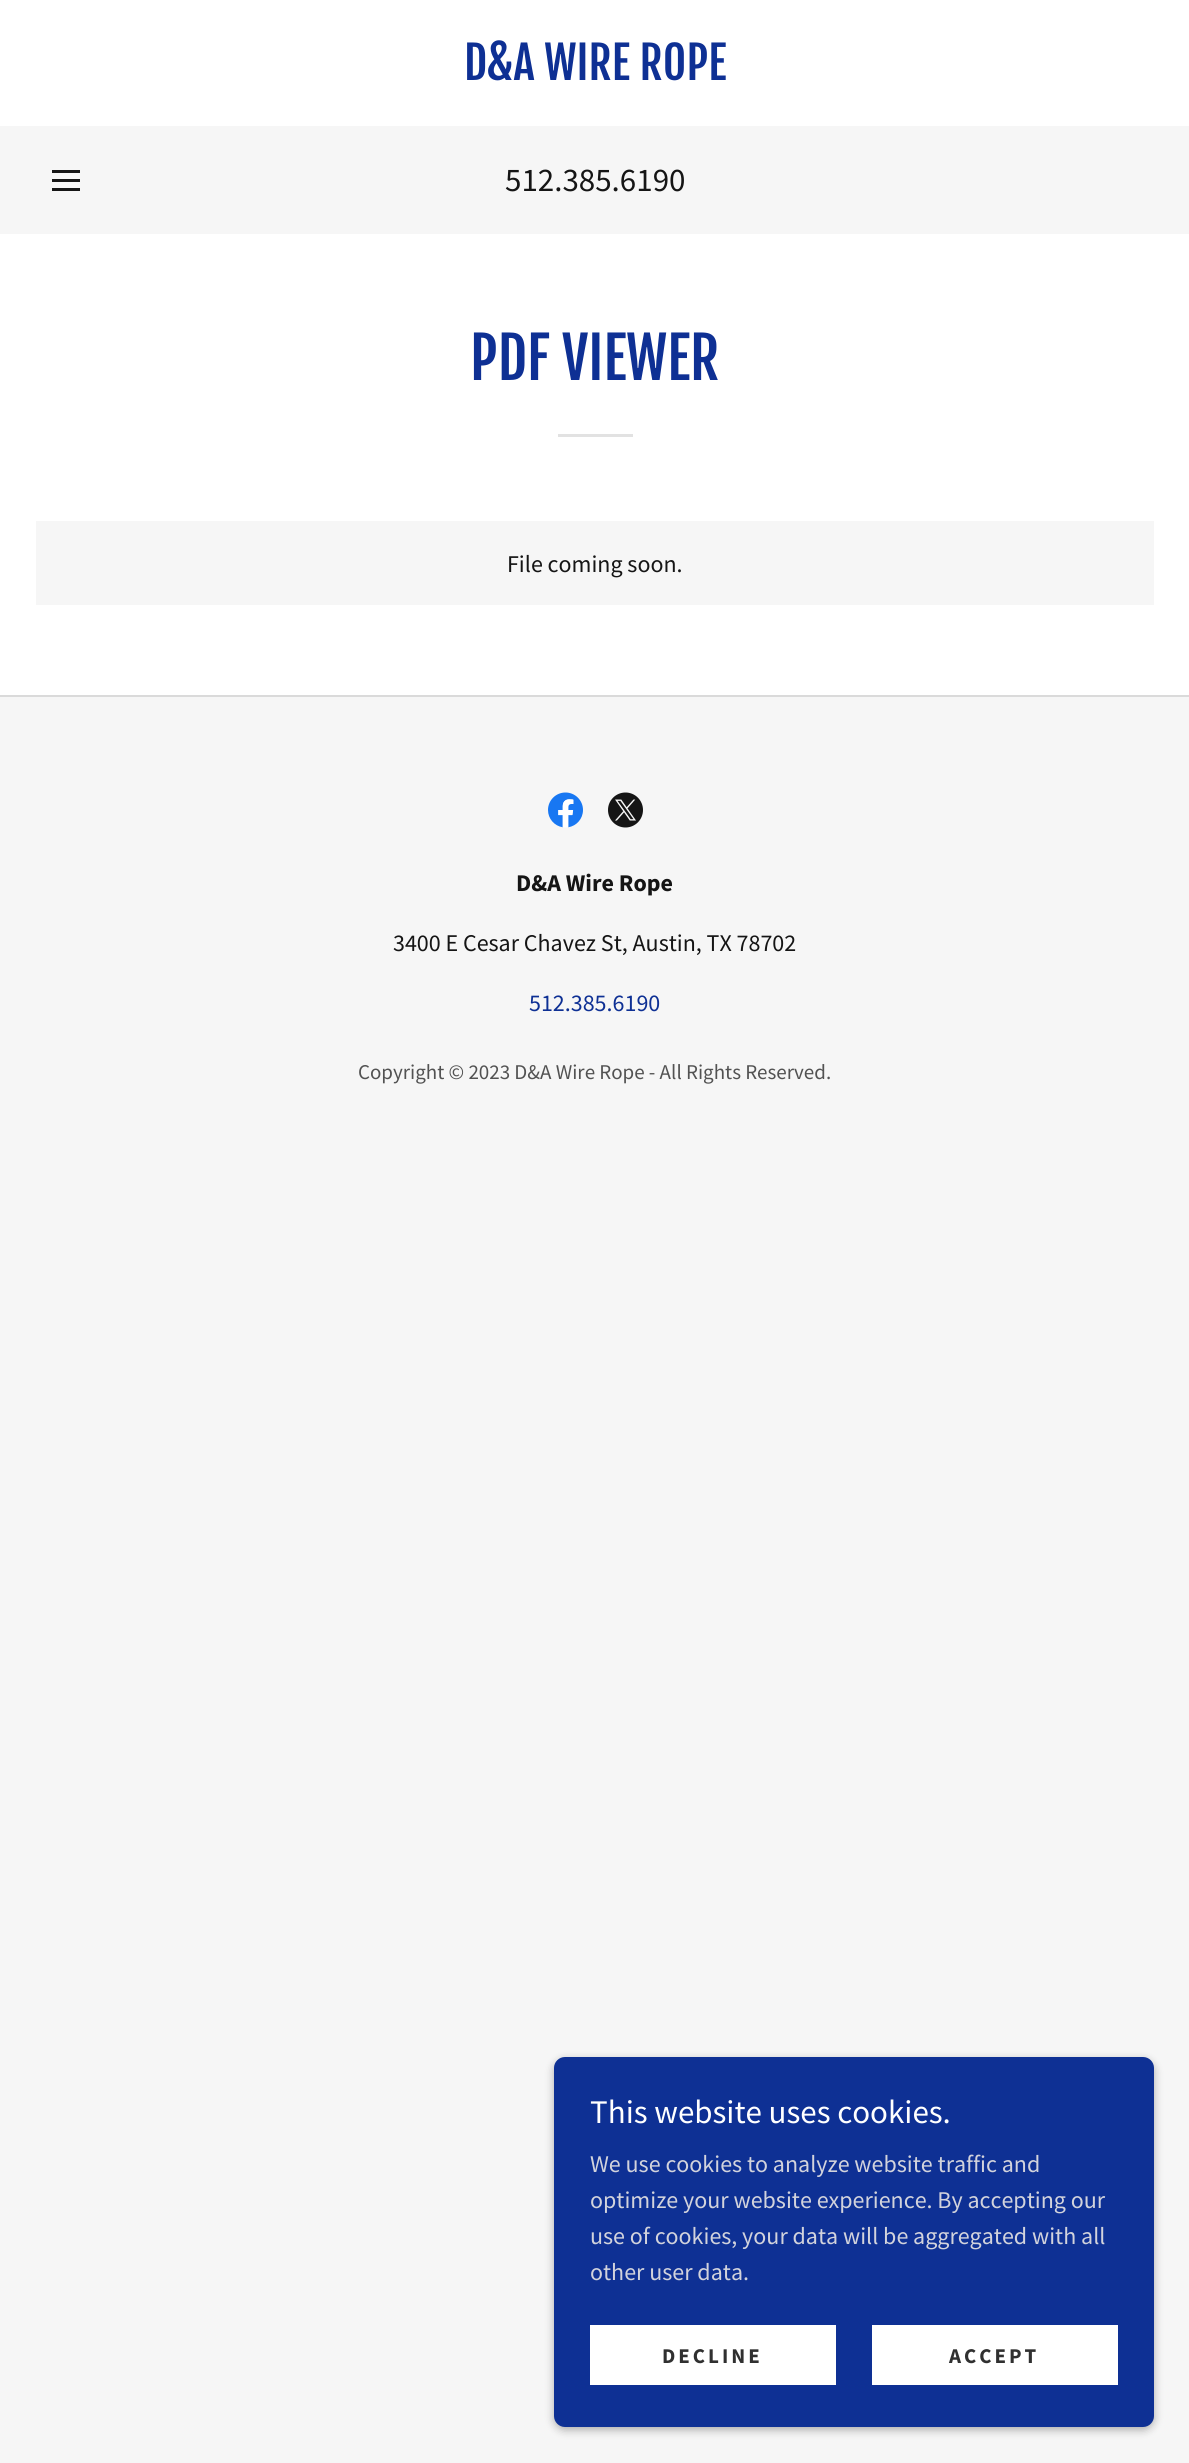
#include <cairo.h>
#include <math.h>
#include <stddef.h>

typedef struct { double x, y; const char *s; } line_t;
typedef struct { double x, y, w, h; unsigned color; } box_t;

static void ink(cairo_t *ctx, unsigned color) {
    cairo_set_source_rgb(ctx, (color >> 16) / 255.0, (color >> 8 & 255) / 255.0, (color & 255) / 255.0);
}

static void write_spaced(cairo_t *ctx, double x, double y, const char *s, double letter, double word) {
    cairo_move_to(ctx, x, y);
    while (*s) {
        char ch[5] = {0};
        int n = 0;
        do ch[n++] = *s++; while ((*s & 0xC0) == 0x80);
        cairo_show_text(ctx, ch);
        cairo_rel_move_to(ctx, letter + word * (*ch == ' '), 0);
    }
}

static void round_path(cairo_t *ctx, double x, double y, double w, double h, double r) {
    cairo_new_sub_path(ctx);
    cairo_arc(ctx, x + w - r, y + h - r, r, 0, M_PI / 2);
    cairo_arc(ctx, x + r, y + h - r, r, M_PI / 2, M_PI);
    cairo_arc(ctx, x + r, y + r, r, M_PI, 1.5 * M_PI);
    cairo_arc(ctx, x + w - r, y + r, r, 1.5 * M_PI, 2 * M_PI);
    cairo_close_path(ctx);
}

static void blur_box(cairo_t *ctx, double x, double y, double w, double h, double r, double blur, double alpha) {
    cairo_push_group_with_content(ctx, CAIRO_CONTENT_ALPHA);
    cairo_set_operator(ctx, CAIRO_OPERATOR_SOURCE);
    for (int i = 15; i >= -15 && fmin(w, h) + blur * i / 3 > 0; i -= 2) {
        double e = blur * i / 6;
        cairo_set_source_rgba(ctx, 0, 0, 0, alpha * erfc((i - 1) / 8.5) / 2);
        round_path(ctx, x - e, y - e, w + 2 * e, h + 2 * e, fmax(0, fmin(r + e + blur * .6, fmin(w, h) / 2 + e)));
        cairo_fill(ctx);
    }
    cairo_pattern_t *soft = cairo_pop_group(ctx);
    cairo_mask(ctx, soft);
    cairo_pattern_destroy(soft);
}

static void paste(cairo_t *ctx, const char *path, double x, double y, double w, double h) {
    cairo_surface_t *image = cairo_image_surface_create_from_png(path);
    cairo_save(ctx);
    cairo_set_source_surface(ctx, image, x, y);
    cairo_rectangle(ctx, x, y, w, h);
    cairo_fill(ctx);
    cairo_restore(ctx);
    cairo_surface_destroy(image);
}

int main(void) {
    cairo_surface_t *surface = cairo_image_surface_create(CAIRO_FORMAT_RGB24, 1189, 2463);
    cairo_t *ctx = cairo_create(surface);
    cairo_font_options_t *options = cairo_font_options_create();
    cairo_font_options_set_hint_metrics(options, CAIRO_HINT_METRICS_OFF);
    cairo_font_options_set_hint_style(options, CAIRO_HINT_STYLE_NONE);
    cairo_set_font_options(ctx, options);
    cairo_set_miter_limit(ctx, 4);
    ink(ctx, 0xF6F6F6);
    cairo_paint(ctx);
    ink(ctx, 0xFFFFFF);
    cairo_rectangle(ctx, 0, 0, 1189, 126);
    cairo_fill(ctx);
    cairo_select_font_face(ctx, "Fjalla One", CAIRO_FONT_SLANT_NORMAL, CAIRO_FONT_WEIGHT_NORMAL);
    cairo_set_font_size(ctx, 45);
    ink(ctx, 0x0E3094);
    cairo_move_to(ctx, 464, 80);
    cairo_show_text(ctx, "D&A WIRE ROPE");
    {
        static const box_t items[] = {
            {52, 170, 28, 3, 0x151515},
            {52, 179, 28, 3, 0x151515},
            {52, 188, 28, 3, 0x151515},
        };
        for (size_t i = 0; i < sizeof items / sizeof *items; i++) {
            ink(ctx, items[i].color);
            cairo_rectangle(ctx, items[i].x, items[i].y, items[i].w, items[i].h);
            cairo_fill(ctx);
        }
    }
    cairo_select_font_face(ctx, "Source Sans Pro", CAIRO_FONT_SLANT_NORMAL, CAIRO_FONT_WEIGHT_NORMAL);
    cairo_set_font_size(ctx, 33);
    cairo_move_to(ctx, 505, 191);
    cairo_show_text(ctx, "512.385.6190");
    ink(ctx, 0xFFFFFF);
    cairo_rectangle(ctx, 0, 234, 1189, 461);
    cairo_fill(ctx);
    cairo_select_font_face(ctx, "Fjalla One", CAIRO_FONT_SLANT_NORMAL, CAIRO_FONT_WEIGHT_NORMAL);
    cairo_set_font_size(ctx, 57);
    ink(ctx, 0x0E3094);
    cairo_move_to(ctx, 470, 380);
    cairo_show_text(ctx, "PDF VIEWER");
    ink(ctx, 0xE2E2E2);
    cairo_rectangle(ctx, 558, 434, 75, 3);
    cairo_fill(ctx);
    ink(ctx, 0xF6F6F6);
    cairo_rectangle(ctx, 36, 521, 1118, 84);
    cairo_fill(ctx);
    cairo_select_font_face(ctx, "Source Sans Pro", CAIRO_FONT_SLANT_NORMAL, CAIRO_FONT_WEIGHT_NORMAL);
    cairo_set_font_size(ctx, 24);
    ink(ctx, 0x151515);
    cairo_move_to(ctx, 507, 572);
    cairo_show_text(ctx, "File coming soon.");
    ink(ctx, 0xDADADA);
    cairo_rectangle(ctx, 0, 695, 1189, 2);
    cairo_fill(ctx);
    paste(ctx, "media/1.png", 548, 792, 35, 36);
    paste(ctx, "media/2.png", 608, 792, 35, 36);
    cairo_select_font_face(ctx, "Source Sans Pro", CAIRO_FONT_SLANT_NORMAL, CAIRO_FONT_WEIGHT_BOLD);
    ink(ctx, 0x151515);
    cairo_move_to(ctx, 516, 891);
    cairo_show_text(ctx, "D&A Wire Rope");
    cairo_select_font_face(ctx, "Source Sans Pro", CAIRO_FONT_SLANT_NORMAL, CAIRO_FONT_WEIGHT_NORMAL);
    cairo_move_to(ctx, 393, 951);
    cairo_show_text(ctx, "3400 E Cesar Chavez St, Austin, TX 78702");
    ink(ctx, 0x0E3094);
    cairo_move_to(ctx, 529, 1011);
    cairo_show_text(ctx, "512.385.6190");
    cairo_set_font_size(ctx, 21);
    ink(ctx, 0x525252);
    cairo_move_to(ctx, 358, 1079);
    cairo_show_text(ctx, "Copyright © 2023 D&A Wire Rope - All Rights Reserved.");
    ink(ctx, 0x000000);
    blur_box(ctx, 554, 2060, 600, 370, 11, 4.5, 0.3);
    ink(ctx, 0x0E3094);
    round_path(ctx, 554, 2057, 600, 370, 11);
    cairo_fill(ctx);
    cairo_set_font_size(ctx, 33);
    ink(ctx, 0xFFFFFF);
    cairo_move_to(ctx, 590, 2123);
    cairo_show_text(ctx, "This website uses cookies.");
    cairo_set_font_size(ctx, 24);
    ink(ctx, 0xD2D3DC);
    {
        static const line_t items[] = {
            {590, 2172, "We use cookies to analyze website traffic and"},
            {590, 2208, "optimize your website experience. By accepting our"},
            {590, 2244, "use of cookies, your data will be aggregated with all"},
            {590, 2280, "other user data."},
        };
        for (size_t i = 0; i < sizeof items / sizeof *items; i++) {
            cairo_move_to(ctx, items[i].x, items[i].y);
            cairo_show_text(ctx, items[i].s);
        }
    }
    ink(ctx, 0xFFFFFF);
    cairo_rectangle(ctx, 590, 2325, 246, 60);
    cairo_fill(ctx);
    cairo_select_font_face(ctx, "Source Sans Pro", CAIRO_FONT_SLANT_NORMAL, CAIRO_FONT_WEIGHT_BOLD);
    cairo_set_font_size(ctx, 21);
    ink(ctx, 0x303030);
    write_spaced(ctx, 662, 2363, "DECLINE", 3, 0);
    ink(ctx, 0xFFFFFF);
    cairo_rectangle(ctx, 872, 2325, 246, 60);
    cairo_fill(ctx);
    ink(ctx, 0x303030);
    write_spaced(ctx, 949, 2363, "ACCEPT", 3, 0);
    cairo_surface_write_to_png(surface, "image.png");
    cairo_font_options_destroy(options);
    cairo_destroy(ctx);
    cairo_surface_destroy(surface);
    return 0;
}
